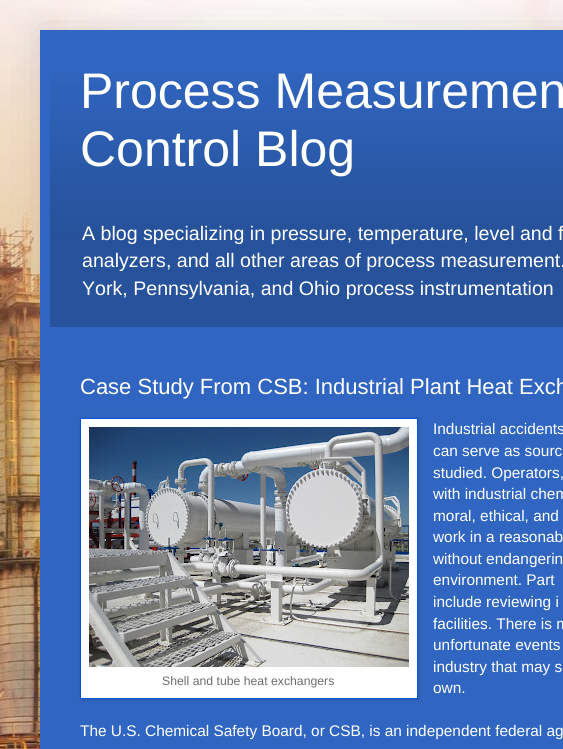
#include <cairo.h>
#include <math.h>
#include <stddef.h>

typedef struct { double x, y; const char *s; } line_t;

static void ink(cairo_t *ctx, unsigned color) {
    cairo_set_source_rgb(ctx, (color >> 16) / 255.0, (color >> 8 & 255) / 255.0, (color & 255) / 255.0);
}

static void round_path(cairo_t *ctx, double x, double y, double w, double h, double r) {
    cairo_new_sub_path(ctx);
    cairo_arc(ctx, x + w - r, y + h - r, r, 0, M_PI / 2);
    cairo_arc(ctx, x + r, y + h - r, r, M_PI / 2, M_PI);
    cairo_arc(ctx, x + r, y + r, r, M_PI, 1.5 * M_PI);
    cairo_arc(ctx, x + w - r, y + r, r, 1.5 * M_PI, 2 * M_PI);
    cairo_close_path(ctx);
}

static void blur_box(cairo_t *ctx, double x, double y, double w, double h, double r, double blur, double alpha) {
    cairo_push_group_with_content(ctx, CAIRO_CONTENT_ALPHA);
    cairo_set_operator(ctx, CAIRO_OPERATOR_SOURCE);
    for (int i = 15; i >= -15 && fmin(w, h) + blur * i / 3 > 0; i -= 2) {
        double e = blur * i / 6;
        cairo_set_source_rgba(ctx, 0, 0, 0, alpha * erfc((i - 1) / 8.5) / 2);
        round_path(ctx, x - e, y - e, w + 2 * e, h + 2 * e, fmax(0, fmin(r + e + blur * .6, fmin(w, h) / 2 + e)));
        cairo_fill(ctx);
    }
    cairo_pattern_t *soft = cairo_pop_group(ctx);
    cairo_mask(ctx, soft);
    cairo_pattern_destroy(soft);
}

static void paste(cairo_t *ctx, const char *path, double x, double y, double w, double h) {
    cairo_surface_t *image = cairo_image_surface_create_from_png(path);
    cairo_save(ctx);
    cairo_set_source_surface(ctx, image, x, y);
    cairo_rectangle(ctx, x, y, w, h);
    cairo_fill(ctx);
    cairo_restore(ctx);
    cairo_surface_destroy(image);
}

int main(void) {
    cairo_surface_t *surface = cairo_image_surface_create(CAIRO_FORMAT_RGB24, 563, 749);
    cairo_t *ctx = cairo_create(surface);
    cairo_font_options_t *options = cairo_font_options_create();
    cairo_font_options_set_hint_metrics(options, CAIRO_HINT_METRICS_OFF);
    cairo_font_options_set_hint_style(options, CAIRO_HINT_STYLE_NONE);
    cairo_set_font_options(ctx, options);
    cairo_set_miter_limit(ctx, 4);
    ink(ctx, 0xFFFFFF);
    cairo_paint(ctx);
    paste(ctx, "media/1.png", 0, 0, 563, 749);
    ink(ctx, 0x000000);
    blur_box(ctx, 40, 30, 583, 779, 0, 20, 0.15);
    ink(ctx, 0x3066C1);
    cairo_rectangle(ctx, 40, 30, 523, 719);
    cairo_fill(ctx);
    paste(ctx, "media/2.png", 50, 73, 513, 254);
    cairo_select_font_face(ctx, "Liberation Sans", CAIRO_FONT_SLANT_NORMAL, CAIRO_FONT_WEIGHT_NORMAL);
    cairo_set_font_size(ctx, 50);
    ink(ctx, 0xFFFFFF);
    cairo_move_to(ctx, 80, 108);
    cairo_show_text(ctx, "Process Measuremen");
    cairo_move_to(ctx, 80, 166);
    cairo_show_text(ctx, "Control Blog");
    cairo_set_font_size(ctx, 19.6);
    {
        static const line_t items[] = {
            {82, 240, "A blog specializing in pressure, temperature, level and f"},
            {82, 267, "analyzers, and all other areas of process measurement."},
            {82, 295, "York, Pennsylvania, and Ohio process instrumentation"},
        };
        for (size_t i = 0; i < sizeof items / sizeof *items; i++) {
            cairo_move_to(ctx, items[i].x, items[i].y);
            cairo_show_text(ctx, items[i].s);
        }
    }
    cairo_set_font_size(ctx, 22);
    cairo_move_to(ctx, 80, 394);
    cairo_show_text(ctx, "Case Study From CSB: Industrial Plant Heat Exch");
    cairo_set_font_size(ctx, 15.4);
    {
        static const line_t items[] = {
            {433, 434, "Industrial accidents"},
            {433, 456, "can serve as sourc"},
            {433, 478, "studied. Operators,"},
            {433, 499, "with industrial chem"},
            {433, 521, "moral, ethical, and"},
            {433, 542, "work in a reasonab"},
            {433, 564, "without endangerin"},
            {433, 585, "environment. Part"},
            {433, 607, "include reviewing i"},
            {433, 629, "facilities. There is m"},
            {433, 650, "unfortunate events"},
            {433, 672, "industry that may s"},
        };
        for (size_t i = 0; i < sizeof items / sizeof *items; i++) {
            cairo_move_to(ctx, items[i].x, items[i].y);
            cairo_show_text(ctx, items[i].s);
        }
    }
    ink(ctx, 0x000000);
    blur_box(ctx, 81, 419, 338, 281, 0, 2.5, 0.1);
    ink(ctx, 0xFFFFFF);
    cairo_rectangle(ctx, 80.5, 418.5, 337, 280);
    cairo_fill_preserve(ctx);
    ink(ctx, 0x0051D9);
    cairo_set_line_width(ctx, 1);
    cairo_stroke(ctx);
    paste(ctx, "media/3.png", 89, 427, 320, 240);
    cairo_set_font_size(ctx, 12.25);
    ink(ctx, 0x6D6D6D);
    cairo_move_to(ctx, 162, 685);
    cairo_show_text(ctx, "Shell and tube heat exchangers");
    cairo_set_font_size(ctx, 15.4);
    ink(ctx, 0xFFFFFF);
    cairo_move_to(ctx, 433, 693);
    cairo_show_text(ctx, "own.");
    cairo_move_to(ctx, 80, 736);
    cairo_show_text(ctx, "The U.S. Chemical Safety Board, or CSB, is an independent federal ag");
    cairo_surface_write_to_png(surface, "image.png");
    cairo_font_options_destroy(options);
    cairo_destroy(ctx);
    cairo_surface_destroy(surface);
    return 0;
}
